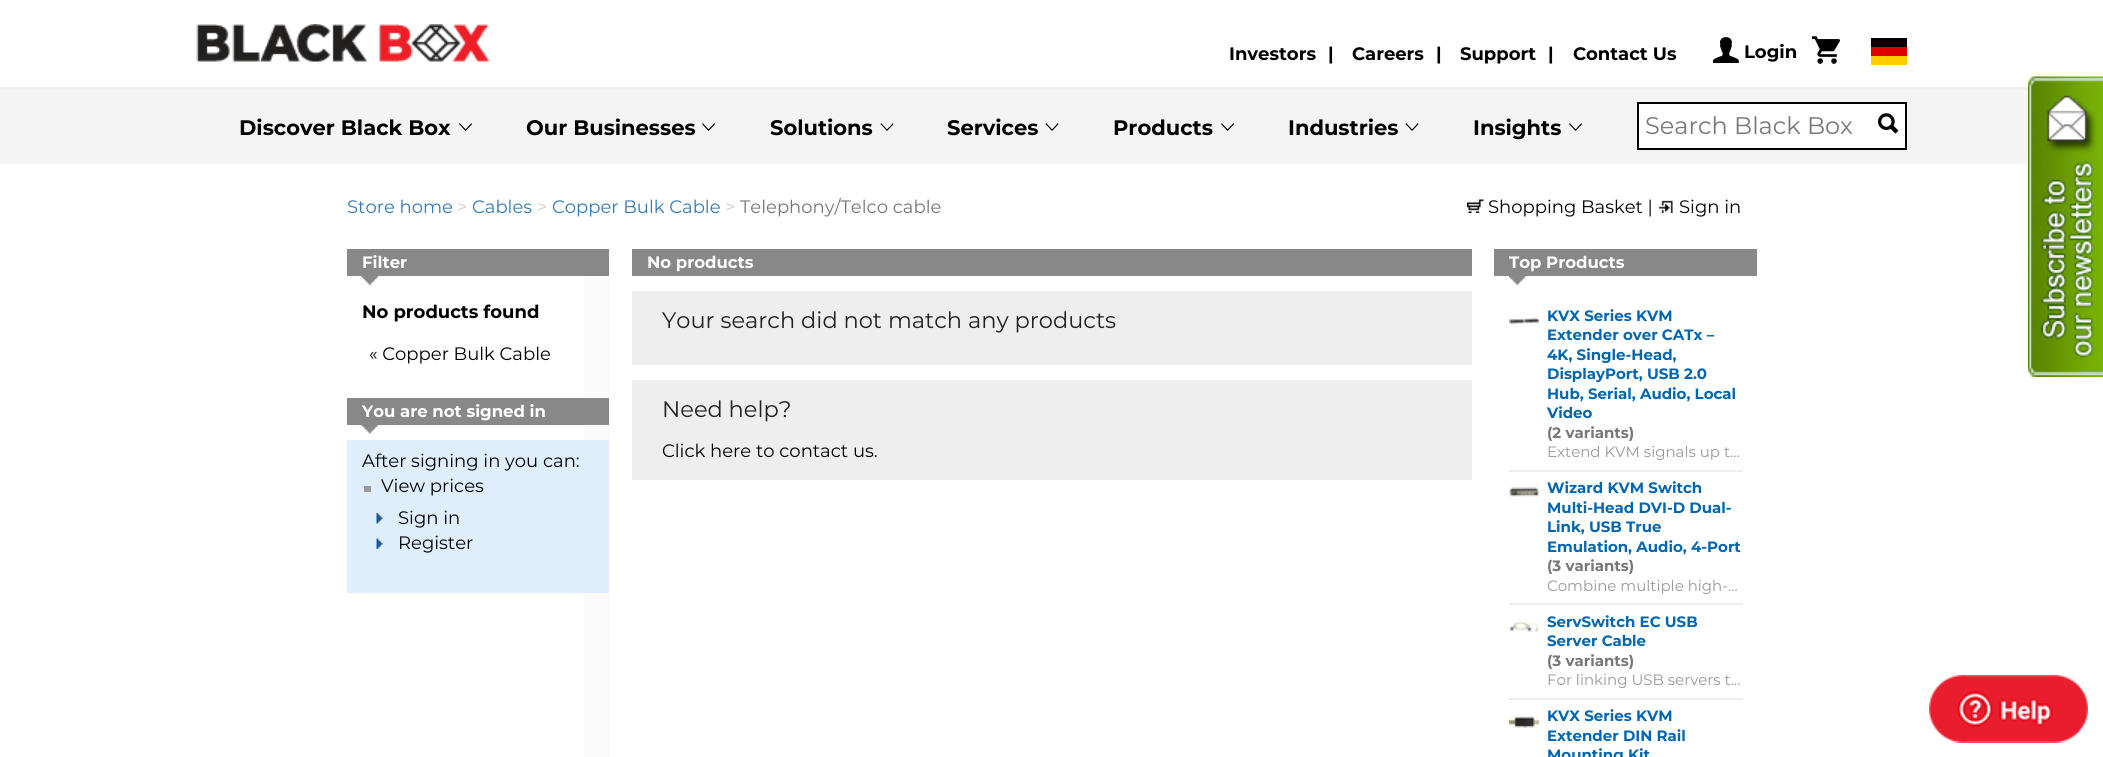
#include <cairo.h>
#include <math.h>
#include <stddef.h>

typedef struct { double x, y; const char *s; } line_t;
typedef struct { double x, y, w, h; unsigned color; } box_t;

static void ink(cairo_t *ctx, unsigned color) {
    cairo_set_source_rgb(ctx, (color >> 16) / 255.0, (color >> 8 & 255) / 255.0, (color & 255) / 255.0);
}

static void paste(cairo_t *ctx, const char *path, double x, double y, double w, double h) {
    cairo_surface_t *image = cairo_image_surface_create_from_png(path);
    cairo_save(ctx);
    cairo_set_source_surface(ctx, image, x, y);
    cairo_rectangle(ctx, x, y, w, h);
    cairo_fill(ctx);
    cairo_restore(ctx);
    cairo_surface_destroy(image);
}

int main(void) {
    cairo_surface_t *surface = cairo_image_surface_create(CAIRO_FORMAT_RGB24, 2103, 757);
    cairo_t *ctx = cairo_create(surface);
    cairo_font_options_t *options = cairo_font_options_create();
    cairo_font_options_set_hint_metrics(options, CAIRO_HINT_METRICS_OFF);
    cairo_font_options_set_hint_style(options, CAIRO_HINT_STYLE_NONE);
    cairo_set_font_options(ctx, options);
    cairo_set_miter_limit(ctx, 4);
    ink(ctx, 0xFFFFFF);
    cairo_paint(ctx);
    ink(ctx, 0xEEEEEE);
    cairo_rectangle(ctx, 0, 87, 2029, 2);
    cairo_fill(ctx);
    paste(ctx, "media/1.png", 196, 24, 294, 38);
    cairo_select_font_face(ctx, "Montserrat", CAIRO_FONT_SLANT_NORMAL, CAIRO_FONT_WEIGHT_BOLD);
    cairo_set_font_size(ctx, 18);
    ink(ctx, 0x000000);
    {
        static const line_t items[] = {
            {1229, 60, "Investors"},
            {1328, 60, "|"},
            {1352, 60, "Careers"},
            {1436, 60, "|"},
            {1460, 60, "Support"},
            {1548, 60, "|"},
            {1573, 60, "Contact Us"},
        };
        for (size_t i = 0; i < sizeof items / sizeof *items; i++) {
            cairo_move_to(ctx, items[i].x, items[i].y);
            cairo_show_text(ctx, items[i].s);
        }
    }
    paste(ctx, "media/2.png", 1713, 37, 26, 26);
    cairo_move_to(ctx, 1744, 58);
    cairo_show_text(ctx, "Login");
    paste(ctx, "media/3.png", 1812, 36, 28, 28);
    {
        static const box_t items[] = {
            {1871, 38, 36, 9, 0x000000},
            {1871, 47, 36, 9, 0xDD0000},
            {1871, 56, 36, 9, 0xFFCE00},
            {0, 89, 2028, 75, 0xF4F4F4},
        };
        for (size_t i = 0; i < sizeof items / sizeof *items; i++) {
            ink(ctx, items[i].color);
            cairo_rectangle(ctx, items[i].x, items[i].y, items[i].w, items[i].h);
            cairo_fill(ctx);
        }
    }
    cairo_set_font_size(ctx, 21);
    ink(ctx, 0x000000);
    cairo_move_to(ctx, 239, 135);
    cairo_show_text(ctx, "Discover Black Box");
    paste(ctx, "media/4.png", 459, 123, 13, 8);
    cairo_move_to(ctx, 526, 135);
    cairo_show_text(ctx, "Our Businesses");
    paste(ctx, "media/4.png", 702, 123, 13, 8);
    cairo_move_to(ctx, 770, 135);
    cairo_show_text(ctx, "Solutions");
    paste(ctx, "media/5.png", 880, 123, 14, 8);
    cairo_move_to(ctx, 947, 135);
    cairo_show_text(ctx, "Services");
    paste(ctx, "media/5.png", 1045, 123, 14, 8);
    cairo_move_to(ctx, 1113, 135);
    cairo_show_text(ctx, "Products");
    paste(ctx, "media/4.png", 1221, 123, 13, 8);
    cairo_move_to(ctx, 1288, 135);
    cairo_show_text(ctx, "Industries");
    paste(ctx, "media/5.png", 1405, 123, 14, 8);
    cairo_move_to(ctx, 1473, 135);
    cairo_show_text(ctx, "Insights");
    paste(ctx, "media/4.png", 1569, 123, 13, 8);
    ink(ctx, 0xFFFFFF);
    cairo_rectangle(ctx, 1638, 103, 268, 46);
    cairo_fill_preserve(ctx);
    ink(ctx, 0x000000);
    cairo_stroke(ctx);
    cairo_select_font_face(ctx, "Montserrat", CAIRO_FONT_SLANT_NORMAL, CAIRO_FONT_WEIGHT_NORMAL);
    cairo_set_font_size(ctx, 24);
    ink(ctx, 0x777777);
    cairo_move_to(ctx, 1645, 134);
    cairo_show_text(ctx, "Search Black Box");
    paste(ctx, "media/6.png", 1878, 113, 21, 21);
    cairo_set_font_size(ctx, 18);
    ink(ctx, 0x337AB7);
    cairo_move_to(ctx, 347, 213);
    cairo_show_text(ctx, "Store home");
    ink(ctx, 0xCCCCCC);
    cairo_move_to(ctx, 457, 213);
    cairo_show_text(ctx, ">");
    ink(ctx, 0x337AB7);
    cairo_move_to(ctx, 472, 213);
    cairo_show_text(ctx, "Cables");
    ink(ctx, 0xCCCCCC);
    cairo_move_to(ctx, 537, 213);
    cairo_show_text(ctx, ">");
    ink(ctx, 0x337AB7);
    cairo_move_to(ctx, 552, 213);
    cairo_show_text(ctx, "Copper Bulk Cable");
    ink(ctx, 0xCCCCCC);
    cairo_move_to(ctx, 725, 213);
    cairo_show_text(ctx, ">");
    ink(ctx, 0x777777);
    cairo_move_to(ctx, 740, 213);
    cairo_show_text(ctx, "Telephony/Telco cable");
    paste(ctx, "media/7.png", 1467, 199, 17, 14);
    ink(ctx, 0x000000);
    cairo_move_to(ctx, 1488, 213);
    cairo_show_text(ctx, "Shopping Basket |");
    paste(ctx, "media/8.png", 1658, 200, 15, 13);
    cairo_move_to(ctx, 1679, 213);
    cairo_show_text(ctx, "Sign in");
    ink(ctx, 0xFAFAFA);
    cairo_rectangle(ctx, 584, 276, 25, 481);
    cairo_fill(ctx);
    ink(ctx, 0x888888);
    cairo_rectangle(ctx, 347, 249, 262, 27);
    cairo_fill(ctx);
    cairo_select_font_face(ctx, "Montserrat", CAIRO_FONT_SLANT_NORMAL, CAIRO_FONT_WEIGHT_BOLD);
    cairo_set_font_size(ctx, 16.5);
    ink(ctx, 0xFFFFFF);
    cairo_move_to(ctx, 362, 268);
    cairo_show_text(ctx, "Filter");
    paste(ctx, "media/9.png", 361, 276, 17, 9);
    cairo_set_font_size(ctx, 18);
    ink(ctx, 0x000000);
    cairo_move_to(ctx, 362, 318);
    cairo_show_text(ctx, "No products found");
    cairo_select_font_face(ctx, "Montserrat", CAIRO_FONT_SLANT_NORMAL, CAIRO_FONT_WEIGHT_NORMAL);
    cairo_move_to(ctx, 369, 360);
    cairo_show_text(ctx, "« Copper Bulk Cable");
    ink(ctx, 0x888888);
    cairo_rectangle(ctx, 347, 398, 262, 27);
    cairo_fill(ctx);
    cairo_select_font_face(ctx, "Montserrat", CAIRO_FONT_SLANT_NORMAL, CAIRO_FONT_WEIGHT_BOLD);
    cairo_set_font_size(ctx, 16.5);
    ink(ctx, 0xFFFFFF);
    cairo_move_to(ctx, 362, 417);
    cairo_show_text(ctx, "You are not signed in");
    paste(ctx, "media/10.png", 361, 425, 17, 9);
    ink(ctx, 0xDEEEFC);
    cairo_rectangle(ctx, 347, 440, 262, 153);
    cairo_fill(ctx);
    cairo_select_font_face(ctx, "Montserrat", CAIRO_FONT_SLANT_NORMAL, CAIRO_FONT_WEIGHT_NORMAL);
    cairo_set_font_size(ctx, 18);
    ink(ctx, 0x000000);
    cairo_move_to(ctx, 362, 467);
    cairo_show_text(ctx, "After signing in you can:");
    ink(ctx, 0x999999);
    cairo_rectangle(ctx, 364, 486, 7, 6);
    cairo_fill(ctx);
    ink(ctx, 0x000000);
    cairo_move_to(ctx, 381, 492);
    cairo_show_text(ctx, "View prices");
    paste(ctx, "media/11.png", 376, 513, 7, 11);
    cairo_move_to(ctx, 398, 524);
    cairo_show_text(ctx, "Sign in");
    paste(ctx, "media/12.png", 376, 538, 7, 11);
    cairo_move_to(ctx, 398, 549);
    cairo_show_text(ctx, "Register");
    ink(ctx, 0x888888);
    cairo_rectangle(ctx, 632, 249, 840, 27);
    cairo_fill(ctx);
    cairo_select_font_face(ctx, "Montserrat", CAIRO_FONT_SLANT_NORMAL, CAIRO_FONT_WEIGHT_BOLD);
    cairo_set_font_size(ctx, 16.5);
    ink(ctx, 0xFFFFFF);
    cairo_move_to(ctx, 647, 268);
    cairo_show_text(ctx, "No products");
    ink(ctx, 0xEEEEEE);
    cairo_rectangle(ctx, 632, 291, 840, 74);
    cairo_fill(ctx);
    cairo_select_font_face(ctx, "Montserrat", CAIRO_FONT_SLANT_NORMAL, CAIRO_FONT_WEIGHT_NORMAL);
    cairo_set_font_size(ctx, 22.5);
    ink(ctx, 0x222222);
    cairo_move_to(ctx, 662, 328);
    cairo_show_text(ctx, "Your search did not match any products");
    ink(ctx, 0xEEEEEE);
    cairo_rectangle(ctx, 632, 380, 840, 100);
    cairo_fill(ctx);
    ink(ctx, 0x222222);
    cairo_move_to(ctx, 662, 417);
    cairo_show_text(ctx, "Need help?");
    cairo_set_font_size(ctx, 18);
    ink(ctx, 0x000000);
    cairo_move_to(ctx, 662, 457);
    cairo_show_text(ctx, "Click here to contact us.");
    ink(ctx, 0x888888);
    cairo_rectangle(ctx, 1494, 249, 263, 27);
    cairo_fill(ctx);
    cairo_select_font_face(ctx, "Montserrat", CAIRO_FONT_SLANT_NORMAL, CAIRO_FONT_WEIGHT_BOLD);
    cairo_set_font_size(ctx, 16.5);
    ink(ctx, 0xFFFFFF);
    cairo_move_to(ctx, 1509, 268);
    cairo_show_text(ctx, "Top Products");
    paste(ctx, "media/13.png", 1509, 276, 17, 9);
    paste(ctx, "media/14.png", 1509, 317, 30, 8);
    ink(ctx, 0xEEEEEE);
    cairo_rectangle(ctx, 1509, 470, 234, 2);
    cairo_fill(ctx);
    cairo_set_font_size(ctx, 15);
    ink(ctx, 0x0066B2);
    {
        static const line_t items[] = {
            {1547, 321, "KVX Series KVM"},
            {1547, 340, "Extender over CATx –"},
            {1547, 360, "4K, Single-Head,"},
            {1547, 379, "DisplayPort, USB 2.0"},
            {1547, 399, "Hub, Serial, Audio, Local"},
            {1547, 418, "Video"},
        };
        for (size_t i = 0; i < sizeof items / sizeof *items; i++) {
            cairo_move_to(ctx, items[i].x, items[i].y);
            cairo_show_text(ctx, items[i].s);
        }
    }
    ink(ctx, 0x777777);
    cairo_move_to(ctx, 1547, 438);
    cairo_show_text(ctx, "(2 variants)");
    cairo_select_font_face(ctx, "Montserrat", CAIRO_FONT_SLANT_NORMAL, CAIRO_FONT_WEIGHT_NORMAL);
    ink(ctx, 0x999999);
    cairo_move_to(ctx, 1547, 457);
    cairo_show_text(ctx, "Extend KVM signals up t…");
    paste(ctx, "media/15.png", 1509, 487, 30, 10);
    ink(ctx, 0xEEEEEE);
    cairo_rectangle(ctx, 1509, 603, 234, 2);
    cairo_fill(ctx);
    cairo_select_font_face(ctx, "Montserrat", CAIRO_FONT_SLANT_NORMAL, CAIRO_FONT_WEIGHT_BOLD);
    ink(ctx, 0x0066B2);
    {
        static const line_t items[] = {
            {1547, 493, "Wizard KVM Switch"},
            {1547, 513, "Multi-Head DVI-D Dual-"},
            {1547, 532, "Link, USB True"},
            {1547, 552, "Emulation, Audio, 4-Port"},
        };
        for (size_t i = 0; i < sizeof items / sizeof *items; i++) {
            cairo_move_to(ctx, items[i].x, items[i].y);
            cairo_show_text(ctx, items[i].s);
        }
    }
    ink(ctx, 0x777777);
    cairo_move_to(ctx, 1547, 571);
    cairo_show_text(ctx, "(3 variants)");
    cairo_select_font_face(ctx, "Montserrat", CAIRO_FONT_SLANT_NORMAL, CAIRO_FONT_WEIGHT_NORMAL);
    ink(ctx, 0x999999);
    cairo_move_to(ctx, 1547, 591);
    cairo_show_text(ctx, "Combine multiple high-…");
    paste(ctx, "media/16.png", 1509, 620, 30, 12);
    ink(ctx, 0xEEEEEE);
    cairo_rectangle(ctx, 1509, 698, 234, 2);
    cairo_fill(ctx);
    cairo_select_font_face(ctx, "Montserrat", CAIRO_FONT_SLANT_NORMAL, CAIRO_FONT_WEIGHT_BOLD);
    ink(ctx, 0x0066B2);
    cairo_move_to(ctx, 1547, 627);
    cairo_show_text(ctx, "ServSwitch EC USB");
    cairo_move_to(ctx, 1547, 646);
    cairo_show_text(ctx, "Server Cable");
    ink(ctx, 0x777777);
    cairo_move_to(ctx, 1547, 666);
    cairo_show_text(ctx, "(3 variants)");
    cairo_select_font_face(ctx, "Montserrat", CAIRO_FONT_SLANT_NORMAL, CAIRO_FONT_WEIGHT_NORMAL);
    ink(ctx, 0x999999);
    cairo_move_to(ctx, 1547, 685);
    cairo_show_text(ctx, "For linking USB servers t…");
    paste(ctx, "media/17.png", 1509, 714, 30, 14);
    cairo_select_font_face(ctx, "Montserrat", CAIRO_FONT_SLANT_NORMAL, CAIRO_FONT_WEIGHT_BOLD);
    ink(ctx, 0x0066B2);
    {
        static const line_t items[] = {
            {1547, 721, "KVX Series KVM"},
            {1547, 741, "Extender DIN Rail"},
            {1547, 760, "Mounting Kit"},
        };
        for (size_t i = 0; i < sizeof items / sizeof *items; i++) {
            cairo_move_to(ctx, items[i].x, items[i].y);
            cairo_show_text(ctx, items[i].s);
        }
    }
    paste(ctx, "media/18.png", 2028, 76, 75, 301);
    paste(ctx, "media/19.png", 1929, 675, 159, 68);
    cairo_surface_write_to_png(surface, "image.png");
    cairo_font_options_destroy(options);
    cairo_destroy(ctx);
    cairo_surface_destroy(surface);
    return 0;
}
